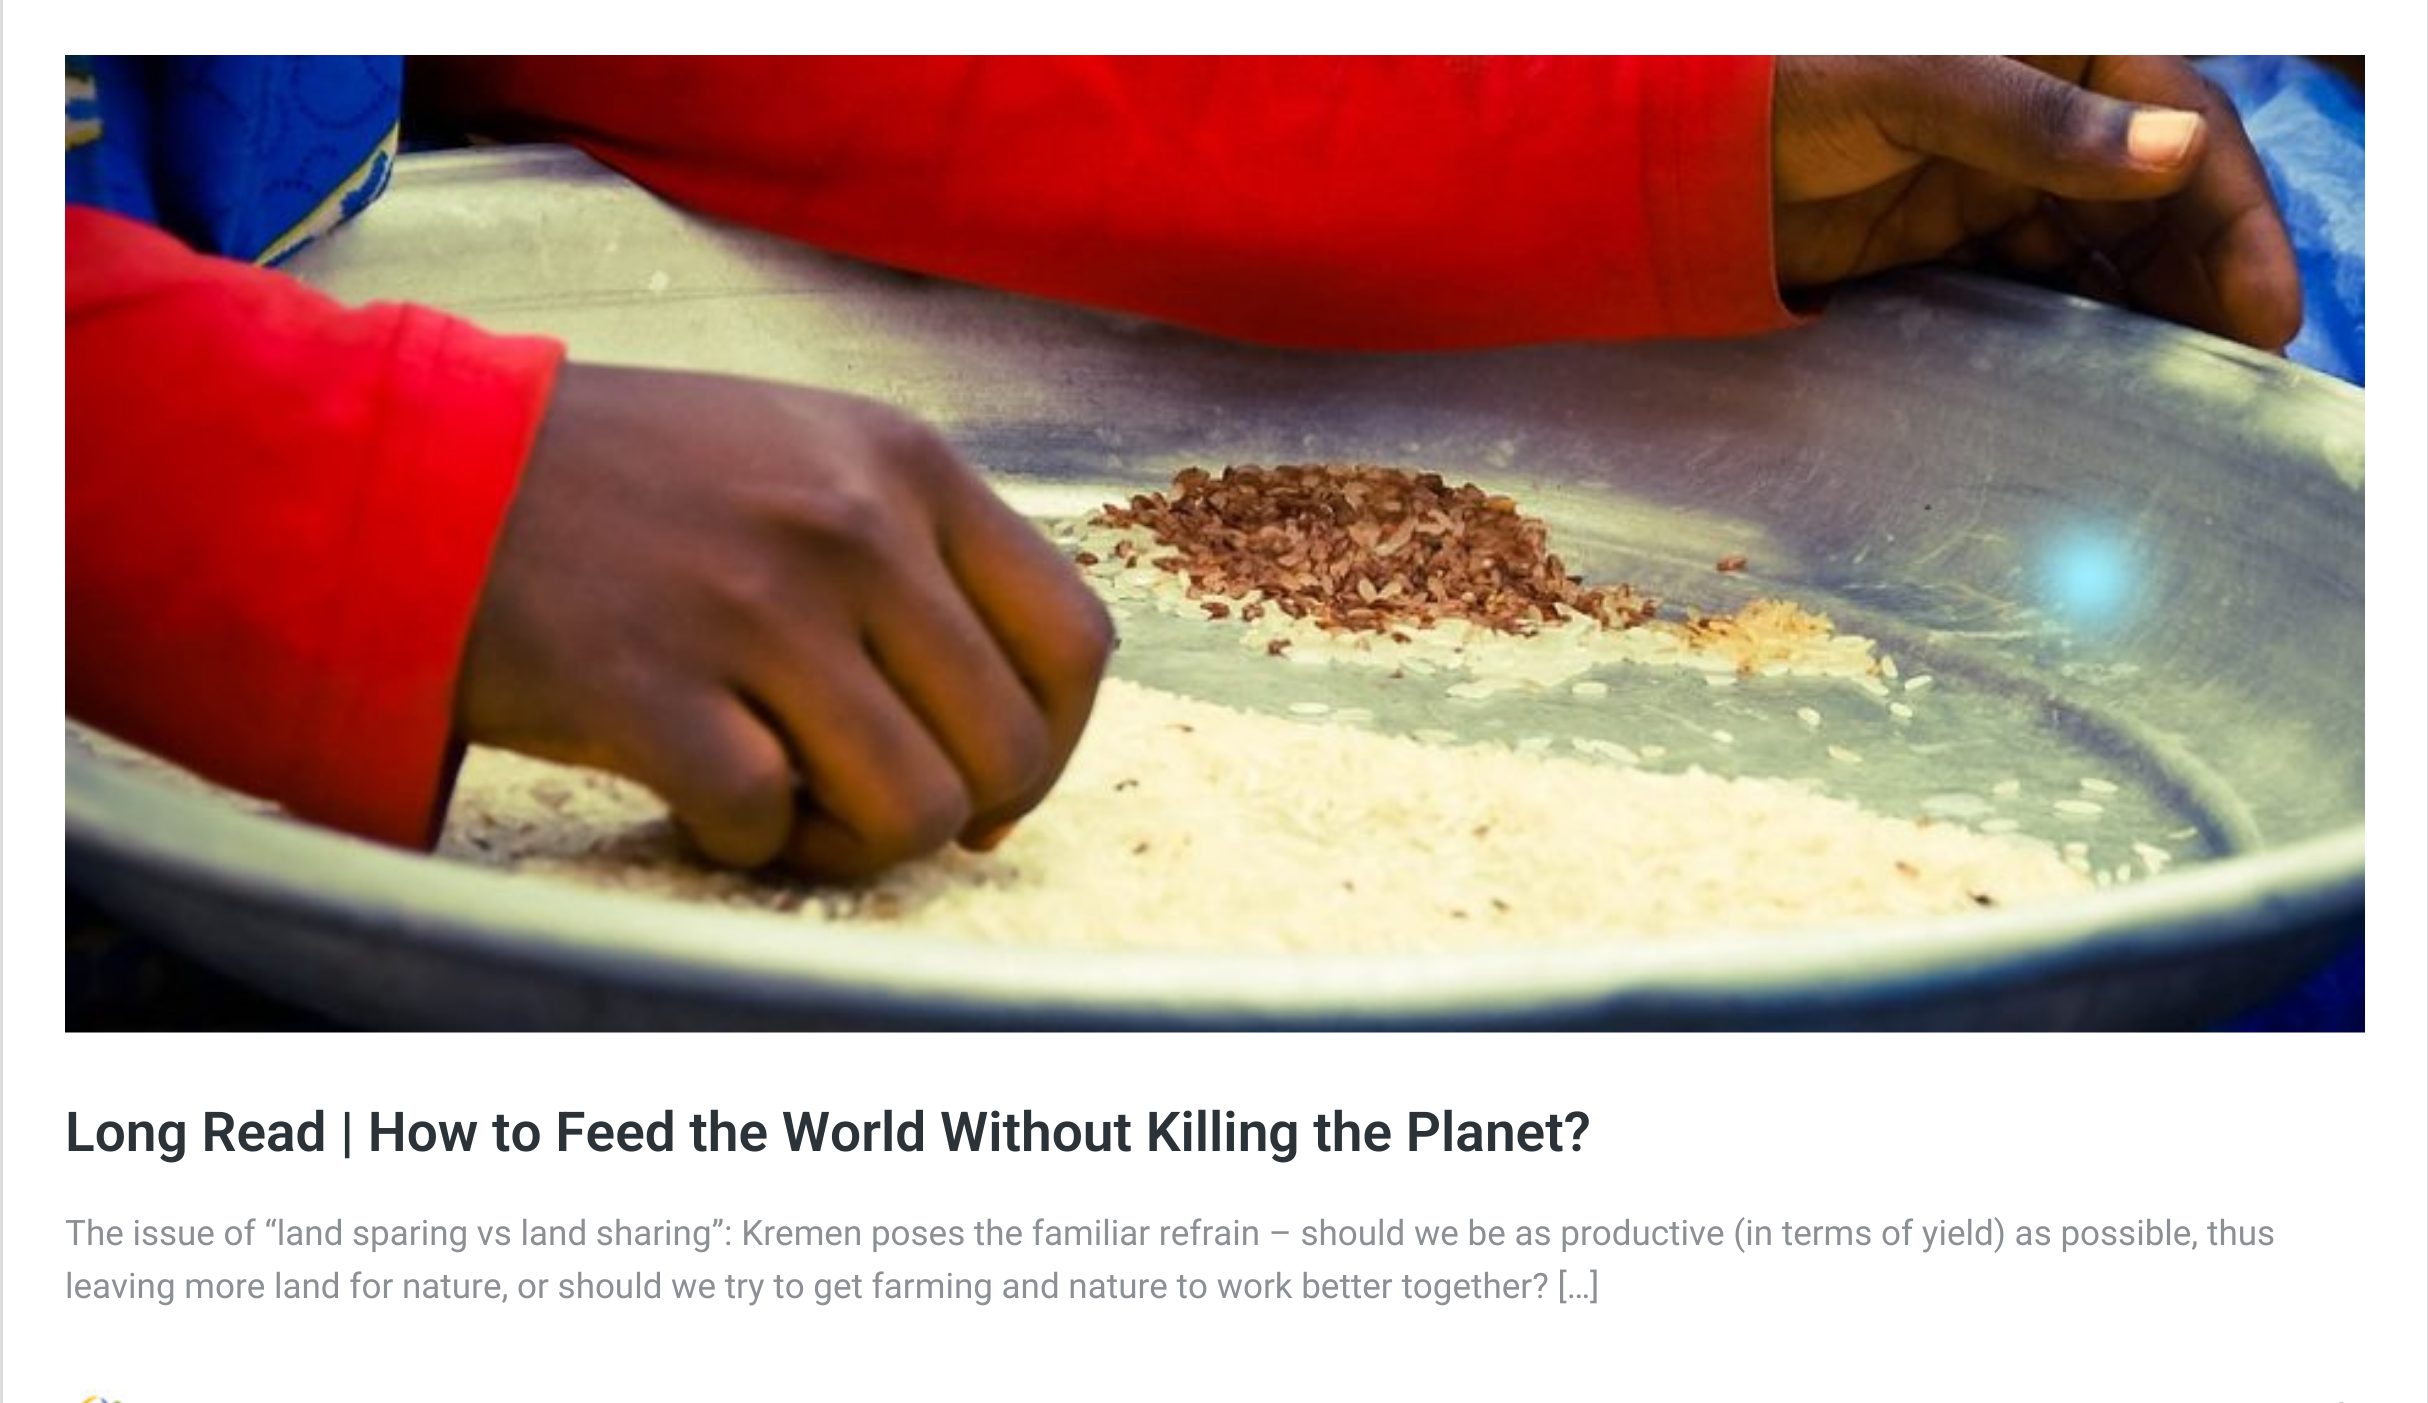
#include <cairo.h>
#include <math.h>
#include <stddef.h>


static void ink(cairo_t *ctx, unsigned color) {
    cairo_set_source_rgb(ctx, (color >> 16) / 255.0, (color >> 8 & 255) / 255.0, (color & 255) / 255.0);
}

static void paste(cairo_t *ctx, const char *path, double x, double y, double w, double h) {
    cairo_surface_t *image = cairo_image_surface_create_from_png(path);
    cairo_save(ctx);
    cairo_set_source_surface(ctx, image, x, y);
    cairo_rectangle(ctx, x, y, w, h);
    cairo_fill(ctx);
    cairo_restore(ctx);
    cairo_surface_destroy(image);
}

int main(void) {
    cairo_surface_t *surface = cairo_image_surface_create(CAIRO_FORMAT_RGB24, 2428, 1403);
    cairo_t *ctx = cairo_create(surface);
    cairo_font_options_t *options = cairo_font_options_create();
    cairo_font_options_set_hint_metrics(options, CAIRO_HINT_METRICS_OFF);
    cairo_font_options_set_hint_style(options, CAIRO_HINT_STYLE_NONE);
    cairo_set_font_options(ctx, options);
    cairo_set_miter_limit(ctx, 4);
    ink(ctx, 0xFFFFFF);
    cairo_paint(ctx);
    cairo_rectangle(ctx, 1.5, -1.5, 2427, 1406);
    ink(ctx, 0xDCDCDE);
    cairo_set_line_width(ctx, 3);
    cairo_stroke(ctx);
    paste(ctx, "media/1.png", 65, 55, 2300, 978);
    cairo_select_font_face(ctx, "Roboto SemiBold", CAIRO_FONT_SLANT_NORMAL, CAIRO_FONT_WEIGHT_NORMAL);
    cairo_set_font_size(ctx, 55);
    ink(ctx, 0x2C3338);
    cairo_move_to(ctx, 65, 1151);
    cairo_show_text(ctx, "Long Read | How to Feed the World Without Killing the Planet?");
    cairo_select_font_face(ctx, "Roboto", CAIRO_FONT_SLANT_NORMAL, CAIRO_FONT_WEIGHT_NORMAL);
    cairo_set_font_size(ctx, 35);
    ink(ctx, 0x8C8F94);
    cairo_move_to(ctx, 65, 1245);
    cairo_show_text(ctx, "The issue of “land sparing vs land sharing”: Kremen poses the familiar refrain – should we be as productive (in terms of yield) as possible, thus");
    cairo_move_to(ctx, 65, 1298);
    cairo_show_text(ctx, "leaving more land for nature, or should we try to get farming and nature to work better together? […]");
    paste(ctx, "media/2.png", 80, 1388, 48, 15);
    paste(ctx, "media/3.png", 2339, 1402, 5, 1);
    cairo_surface_write_to_png(surface, "image.png");
    cairo_font_options_destroy(options);
    cairo_destroy(ctx);
    cairo_surface_destroy(surface);
    return 0;
}
